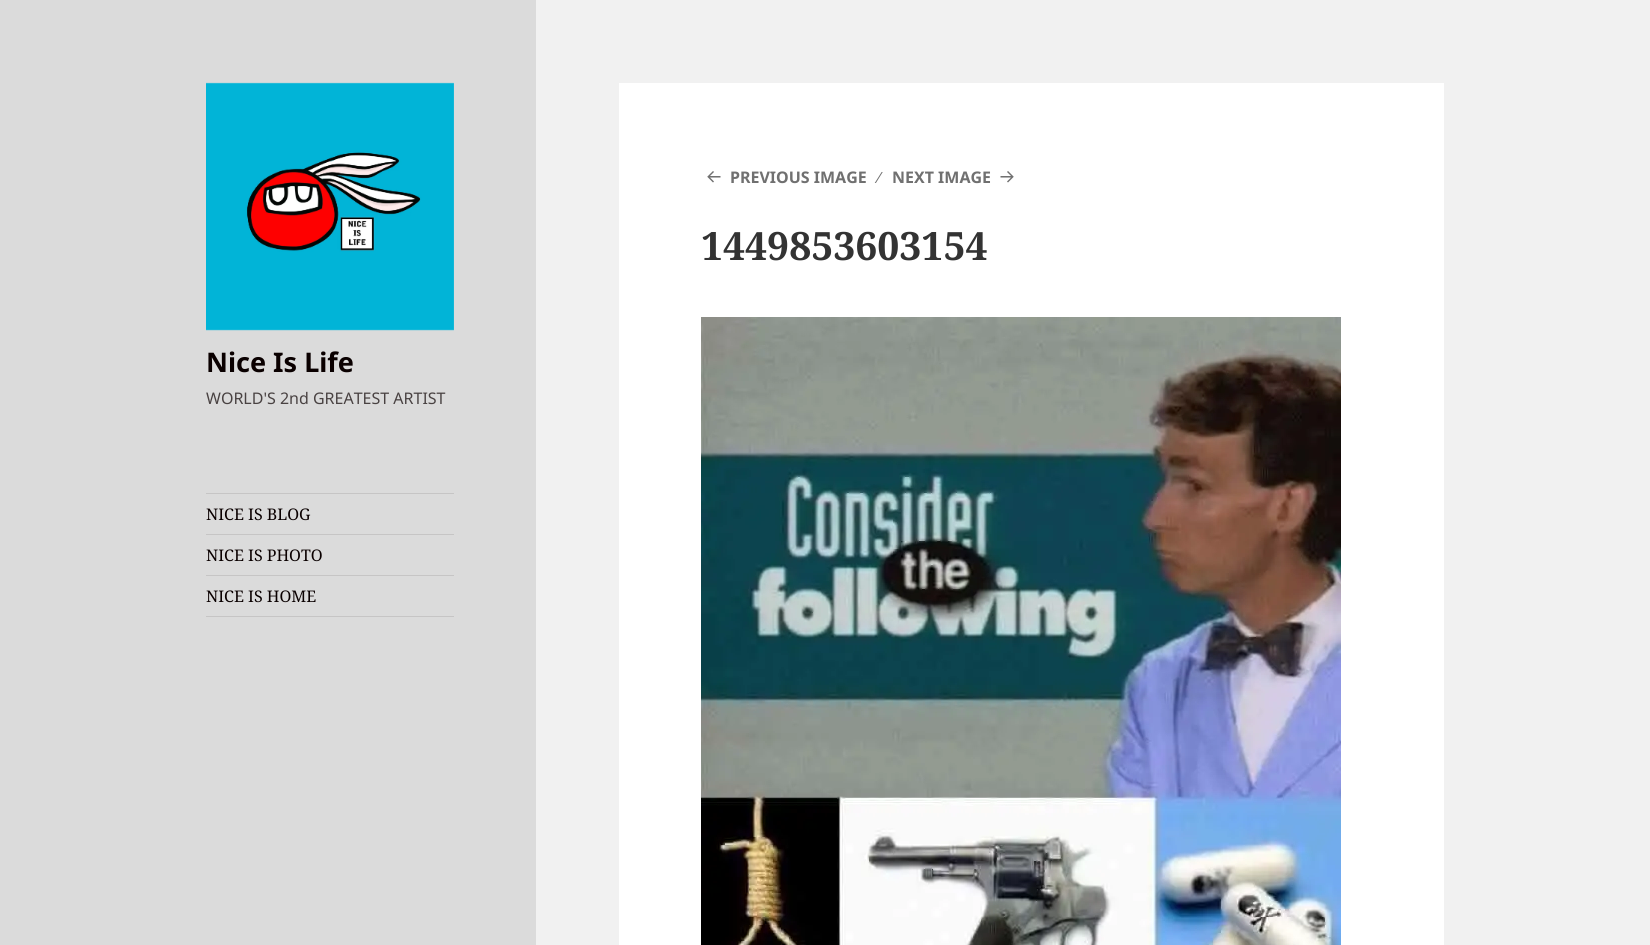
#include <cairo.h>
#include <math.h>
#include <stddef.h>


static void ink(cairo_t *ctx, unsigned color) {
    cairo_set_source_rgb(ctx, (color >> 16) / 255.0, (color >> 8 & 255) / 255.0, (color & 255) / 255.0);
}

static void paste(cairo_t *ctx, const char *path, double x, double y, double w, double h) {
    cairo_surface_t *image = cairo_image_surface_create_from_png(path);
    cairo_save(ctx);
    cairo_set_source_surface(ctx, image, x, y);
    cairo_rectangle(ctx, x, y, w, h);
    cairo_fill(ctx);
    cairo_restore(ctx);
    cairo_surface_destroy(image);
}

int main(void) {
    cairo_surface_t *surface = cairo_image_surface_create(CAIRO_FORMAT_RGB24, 1650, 945);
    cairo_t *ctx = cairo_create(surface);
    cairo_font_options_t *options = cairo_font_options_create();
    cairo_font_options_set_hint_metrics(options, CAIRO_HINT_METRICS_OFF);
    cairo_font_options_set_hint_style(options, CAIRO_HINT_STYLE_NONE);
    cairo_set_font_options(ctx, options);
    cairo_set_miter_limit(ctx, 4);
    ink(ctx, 0xF1F1F1);
    cairo_paint(ctx);
    ink(ctx, 0xDBDBDB);
    cairo_rectangle(ctx, 0, 0, 536, 945);
    cairo_fill(ctx);
    ink(ctx, 0xFFFFFF);
    cairo_rectangle(ctx, 619, 83, 825, 862);
    cairo_fill(ctx);
    paste(ctx, "media/1.png", 707, 171, 14, 12);
    cairo_select_font_face(ctx, "Noto Sans", CAIRO_FONT_SLANT_NORMAL, CAIRO_FONT_WEIGHT_BOLD);
    cairo_set_font_size(ctx, 16);
    ink(ctx, 0x707070);
    cairo_move_to(ctx, 730, 183);
    cairo_show_text(ctx, "PREVIOUS IMAGE");
    cairo_select_font_face(ctx, "Liberation Sans", CAIRO_FONT_SLANT_NORMAL, CAIRO_FONT_WEIGHT_NORMAL);
    cairo_move_to(ctx, 878, 183);
    cairo_show_text(ctx, "∕");
    cairo_select_font_face(ctx, "Noto Sans", CAIRO_FONT_SLANT_NORMAL, CAIRO_FONT_WEIGHT_BOLD);
    cairo_move_to(ctx, 892, 183);
    cairo_show_text(ctx, "NEXT IMAGE");
    paste(ctx, "media/2.png", 1000, 171, 14, 12);
    cairo_select_font_face(ctx, "Noto Serif", CAIRO_FONT_SLANT_NORMAL, CAIRO_FONT_WEIGHT_BOLD);
    cairo_set_font_size(ctx, 39);
    ink(ctx, 0x333333);
    cairo_move_to(ctx, 701, 260);
    cairo_show_text(ctx, "1449853603154");
    paste(ctx, "media/3.png", 701, 317, 640, 628);
    paste(ctx, "media/4.png", 206, 82, 248, 249);
    cairo_select_font_face(ctx, "Noto Sans", CAIRO_FONT_SLANT_NORMAL, CAIRO_FONT_WEIGHT_BOLD);
    cairo_set_font_size(ctx, 27);
    ink(ctx, 0x0A0000);
    cairo_move_to(ctx, 206, 372);
    cairo_show_text(ctx, "Nice Is Life");
    cairo_select_font_face(ctx, "Noto Sans", CAIRO_FONT_SLANT_NORMAL, CAIRO_FONT_WEIGHT_NORMAL);
    cairo_set_font_size(ctx, 16);
    ink(ctx, 0x494242);
    cairo_move_to(ctx, 206, 404);
    cairo_show_text(ctx, "WORLD'S 2nd GREATEST ARTIST");
    ink(ctx, 0xC6C5C5);
    cairo_rectangle(ctx, 206, 493, 248, 1);
    cairo_fill(ctx);
    cairo_rectangle(ctx, 206, 616, 248, 1);
    cairo_fill(ctx);
    cairo_select_font_face(ctx, "Noto Serif", CAIRO_FONT_SLANT_NORMAL, CAIRO_FONT_WEIGHT_NORMAL);
    ink(ctx, 0x0A0000);
    cairo_move_to(ctx, 206, 520);
    cairo_show_text(ctx, "NICE IS BLOG");
    ink(ctx, 0xC6C5C5);
    cairo_rectangle(ctx, 206, 534, 248, 1);
    cairo_fill(ctx);
    ink(ctx, 0x0A0000);
    cairo_move_to(ctx, 206, 561);
    cairo_show_text(ctx, "NICE IS PHOTO");
    ink(ctx, 0xC6C5C5);
    cairo_rectangle(ctx, 206, 575, 248, 1);
    cairo_fill(ctx);
    ink(ctx, 0x0A0000);
    cairo_move_to(ctx, 206, 602);
    cairo_show_text(ctx, "NICE IS HOME");
    cairo_surface_write_to_png(surface, "image.png");
    cairo_font_options_destroy(options);
    cairo_destroy(ctx);
    cairo_surface_destroy(surface);
    return 0;
}
